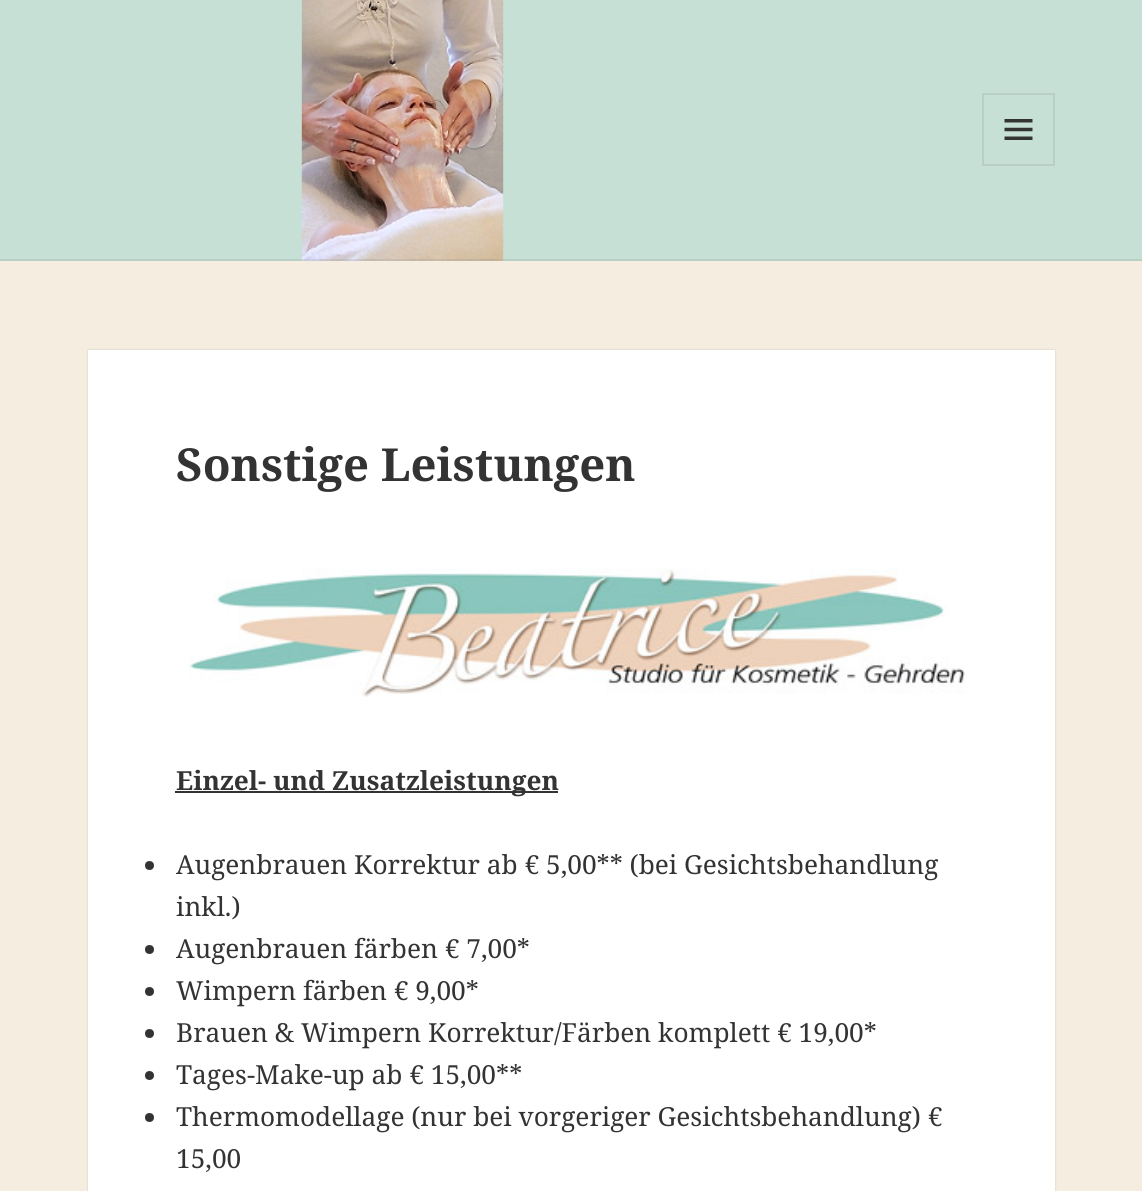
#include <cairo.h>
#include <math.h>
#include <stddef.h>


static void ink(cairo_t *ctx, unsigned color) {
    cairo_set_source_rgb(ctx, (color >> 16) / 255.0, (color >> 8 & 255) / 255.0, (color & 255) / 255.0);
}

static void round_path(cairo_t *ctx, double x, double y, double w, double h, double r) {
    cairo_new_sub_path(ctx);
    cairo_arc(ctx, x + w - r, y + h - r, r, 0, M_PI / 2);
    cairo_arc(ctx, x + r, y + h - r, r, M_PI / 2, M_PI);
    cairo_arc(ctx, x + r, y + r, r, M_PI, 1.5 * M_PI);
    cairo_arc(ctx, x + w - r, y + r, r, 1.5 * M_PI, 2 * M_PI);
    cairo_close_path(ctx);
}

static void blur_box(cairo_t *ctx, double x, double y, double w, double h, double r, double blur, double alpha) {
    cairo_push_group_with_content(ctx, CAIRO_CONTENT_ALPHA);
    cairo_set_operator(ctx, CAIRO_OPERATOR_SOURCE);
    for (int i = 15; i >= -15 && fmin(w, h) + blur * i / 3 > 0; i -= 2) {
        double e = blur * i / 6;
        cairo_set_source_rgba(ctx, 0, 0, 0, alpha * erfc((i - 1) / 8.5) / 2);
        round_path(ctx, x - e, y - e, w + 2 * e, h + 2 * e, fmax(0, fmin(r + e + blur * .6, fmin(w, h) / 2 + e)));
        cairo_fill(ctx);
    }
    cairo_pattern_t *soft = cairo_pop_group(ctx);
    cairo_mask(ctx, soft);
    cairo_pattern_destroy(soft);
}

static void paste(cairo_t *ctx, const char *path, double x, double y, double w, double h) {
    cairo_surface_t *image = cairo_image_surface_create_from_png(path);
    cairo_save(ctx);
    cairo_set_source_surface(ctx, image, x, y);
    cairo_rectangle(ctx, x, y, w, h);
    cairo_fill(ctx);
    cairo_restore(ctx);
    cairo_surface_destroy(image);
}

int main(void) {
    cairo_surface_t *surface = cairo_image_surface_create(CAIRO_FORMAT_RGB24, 1142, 1191);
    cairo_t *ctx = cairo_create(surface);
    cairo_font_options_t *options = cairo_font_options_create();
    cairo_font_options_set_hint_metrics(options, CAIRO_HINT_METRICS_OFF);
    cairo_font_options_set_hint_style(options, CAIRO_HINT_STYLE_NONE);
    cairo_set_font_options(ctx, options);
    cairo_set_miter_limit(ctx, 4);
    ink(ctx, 0xF5EDE0);
    cairo_paint(ctx);
    ink(ctx, 0xC6E0D6);
    cairo_rectangle(ctx, 0, 0, 1142, 261);
    cairo_fill(ctx);
    paste(ctx, "media/1.png", 300, 0, 205, 261);
    cairo_set_source_rgba(ctx, 0.2, 0.2, 0.2, 0.1);
    cairo_rectangle(ctx, 0, 259, 1142, 2);
    cairo_fill(ctx);
    cairo_rectangle(ctx, 983, 94, 71, 71);
    ink(ctx, 0xB7CFC6);
    cairo_stroke(ctx);
    paste(ctx, "media/2.png", 1004, 119, 29, 21);
    ink(ctx, 0x000000);
    blur_box(ctx, 88, 350, 967, 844, 0, 1, 0.15);
    ink(ctx, 0xFFFFFF);
    cairo_rectangle(ctx, 88, 350, 967, 841);
    cairo_fill(ctx);
    cairo_select_font_face(ctx, "Noto Serif", CAIRO_FONT_SLANT_NORMAL, CAIRO_FONT_WEIGHT_BOLD);
    cairo_set_font_size(ctx, 45.5);
    ink(ctx, 0x333333);
    cairo_move_to(ctx, 176, 481);
    cairo_show_text(ctx, "Sonstige Leistungen");
    paste(ctx, "media/3.png", 189, 568, 776, 129);
    cairo_rectangle(ctx, 175, 791, 383, 2);
    cairo_fill(ctx);
    cairo_set_font_size(ctx, 26.25);
    cairo_move_to(ctx, 176, 790);
    cairo_show_text(ctx, "Einzel- und Zusatzleistungen");
    cairo_new_path(ctx);
    cairo_arc(ctx, 149.5, 865.5, 4.5, 0, 2 * M_PI);
    cairo_fill(ctx);
    cairo_select_font_face(ctx, "Noto Serif", CAIRO_FONT_SLANT_NORMAL, CAIRO_FONT_WEIGHT_NORMAL);
    cairo_move_to(ctx, 176, 874);
    cairo_show_text(ctx, "Augenbrauen Korrektur ab € 5,00** (bei Gesichtsbehandlung");
    cairo_move_to(ctx, 176, 916);
    cairo_show_text(ctx, "inkl.)");
    cairo_new_path(ctx);
    cairo_arc(ctx, 149.5, 949.5, 4.5, 0, 2 * M_PI);
    cairo_fill(ctx);
    cairo_move_to(ctx, 176, 958);
    cairo_show_text(ctx, "Augenbrauen färben € 7,00*");
    cairo_new_path(ctx);
    cairo_arc(ctx, 149.5, 991.5, 4.5, 0, 2 * M_PI);
    cairo_fill(ctx);
    cairo_move_to(ctx, 176, 1000);
    cairo_show_text(ctx, "Wimpern färben € 9,00*");
    cairo_new_path(ctx);
    cairo_arc(ctx, 149.5, 1033.5, 4.5, 0, 2 * M_PI);
    cairo_fill(ctx);
    cairo_move_to(ctx, 176, 1042);
    cairo_show_text(ctx, "Brauen & Wimpern Korrektur/Färben komplett € 19,00*");
    cairo_new_path(ctx);
    cairo_arc(ctx, 149.5, 1075.5, 4.5, 0, 2 * M_PI);
    cairo_fill(ctx);
    cairo_move_to(ctx, 176, 1084);
    cairo_show_text(ctx, "Tages-Make-up ab € 15,00**");
    cairo_new_path(ctx);
    cairo_arc(ctx, 149.5, 1117.5, 4.5, 0, 2 * M_PI);
    cairo_fill(ctx);
    cairo_move_to(ctx, 176, 1126);
    cairo_show_text(ctx, "Thermomodellage (nur bei vorgeriger Gesichtsbehandlung) €");
    cairo_move_to(ctx, 176, 1168);
    cairo_show_text(ctx, "15,00");
    cairo_surface_write_to_png(surface, "image.png");
    cairo_font_options_destroy(options);
    cairo_destroy(ctx);
    cairo_surface_destroy(surface);
    return 0;
}
